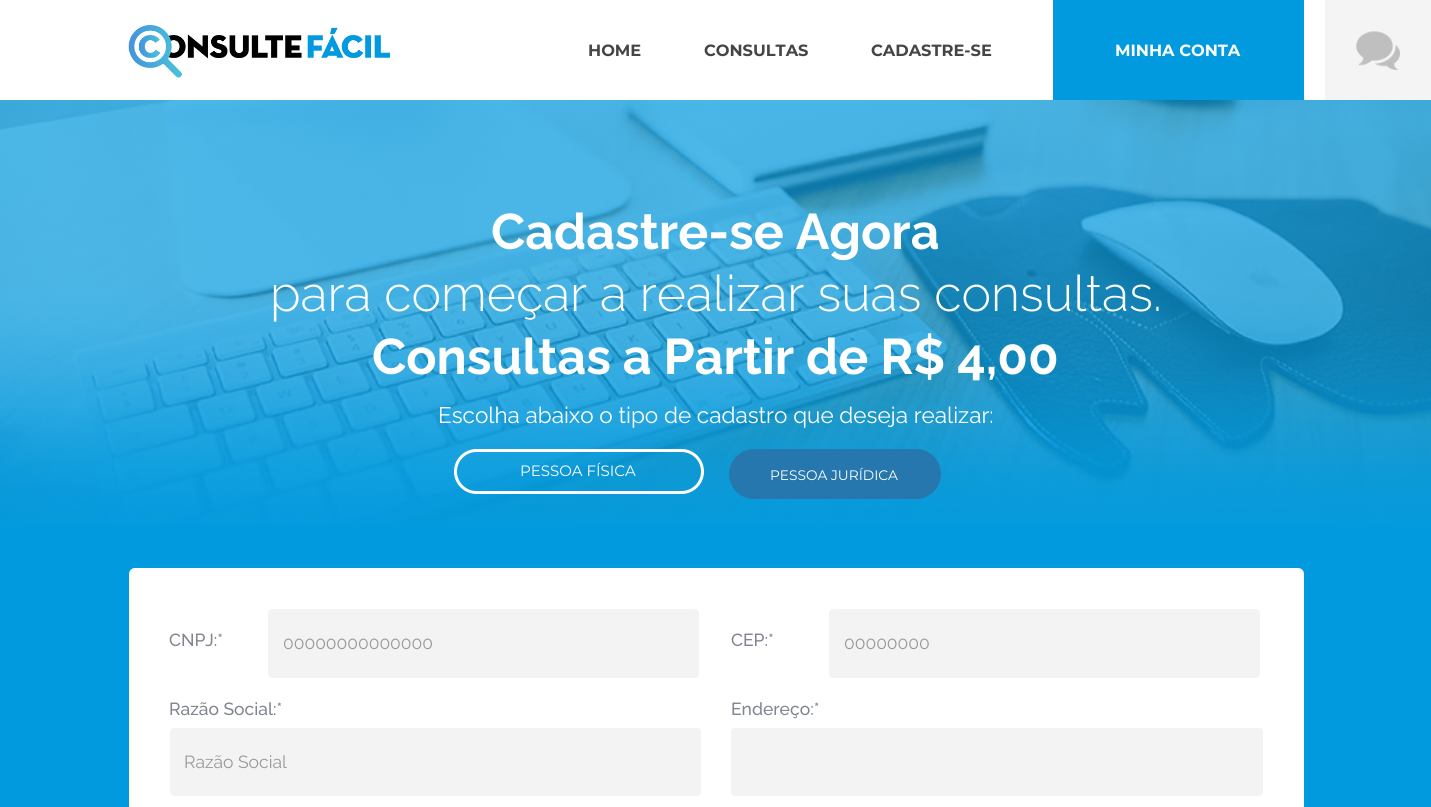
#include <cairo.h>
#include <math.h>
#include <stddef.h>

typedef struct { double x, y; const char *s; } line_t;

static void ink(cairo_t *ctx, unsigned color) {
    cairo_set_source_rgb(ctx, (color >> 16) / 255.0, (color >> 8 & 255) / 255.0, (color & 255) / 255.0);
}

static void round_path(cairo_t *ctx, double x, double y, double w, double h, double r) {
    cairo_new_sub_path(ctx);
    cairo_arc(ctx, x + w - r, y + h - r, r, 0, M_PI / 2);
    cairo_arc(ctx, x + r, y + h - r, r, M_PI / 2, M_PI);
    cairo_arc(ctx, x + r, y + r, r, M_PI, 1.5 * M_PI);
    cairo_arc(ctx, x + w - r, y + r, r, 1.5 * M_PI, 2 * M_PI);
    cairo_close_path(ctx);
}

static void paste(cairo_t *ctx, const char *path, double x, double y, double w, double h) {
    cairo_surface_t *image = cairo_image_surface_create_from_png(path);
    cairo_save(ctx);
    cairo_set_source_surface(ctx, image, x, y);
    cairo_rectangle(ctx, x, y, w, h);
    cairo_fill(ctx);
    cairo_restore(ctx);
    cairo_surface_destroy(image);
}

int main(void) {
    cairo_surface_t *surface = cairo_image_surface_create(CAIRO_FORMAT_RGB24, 1431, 807);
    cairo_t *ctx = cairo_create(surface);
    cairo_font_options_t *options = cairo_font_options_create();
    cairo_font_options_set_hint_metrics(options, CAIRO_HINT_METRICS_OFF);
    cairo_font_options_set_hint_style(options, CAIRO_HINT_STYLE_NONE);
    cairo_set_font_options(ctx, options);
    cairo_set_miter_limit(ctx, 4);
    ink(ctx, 0xFFFFFF);
    cairo_paint(ctx);
    paste(ctx, "media/1.png", 128, 25, 262, 53);
    cairo_select_font_face(ctx, "Montserrat", CAIRO_FONT_SLANT_NORMAL, CAIRO_FONT_WEIGHT_BOLD);
    cairo_set_font_size(ctx, 16.25);
    ink(ctx, 0x454545);
    {
        static const line_t items[] = {
            {588, 56, "HOME"},
            {704, 56, "CONSULTAS"},
            {871, 56, "CADASTRE-SE"},
        };
        for (size_t i = 0; i < sizeof items / sizeof *items; i++) {
            cairo_move_to(ctx, items[i].x, items[i].y);
            cairo_show_text(ctx, items[i].s);
        }
    }
    ink(ctx, 0x019ADE);
    cairo_rectangle(ctx, 1053, 0, 251, 100);
    cairo_fill(ctx);
    ink(ctx, 0xFFFFFF);
    cairo_move_to(ctx, 1115, 56);
    cairo_show_text(ctx, "MINHA CONTA");
    ink(ctx, 0xF4F4F4);
    cairo_rectangle(ctx, 1325, 0, 106, 100);
    cairo_fill(ctx);
    paste(ctx, "media/2.png", 1356, 31, 44, 39);
    ink(ctx, 0x019ADE);
    cairo_rectangle(ctx, 0, 525, 1431, 282);
    cairo_fill(ctx);
    paste(ctx, "media/3.png", 0, 100, 1431, 425);
    cairo_select_font_face(ctx, "Raleway", CAIRO_FONT_SLANT_NORMAL, CAIRO_FONT_WEIGHT_BOLD);
    cairo_set_font_size(ctx, 50);
    ink(ctx, 0xFFFFFF);
    cairo_move_to(ctx, 491, 249);
    cairo_show_text(ctx, "Cadastre-se Agora");
    cairo_select_font_face(ctx, "Raleway Light", CAIRO_FONT_SLANT_NORMAL, CAIRO_FONT_WEIGHT_NORMAL);
    cairo_move_to(ctx, 270, 311);
    cairo_show_text(ctx, "para começar a realizar suas consultas.");
    cairo_select_font_face(ctx, "Raleway", CAIRO_FONT_SLANT_NORMAL, CAIRO_FONT_WEIGHT_BOLD);
    cairo_move_to(ctx, 372, 374);
    cairo_show_text(ctx, "Consultas a Partir de R$ 4,00");
    cairo_select_font_face(ctx, "Raleway", CAIRO_FONT_SLANT_NORMAL, CAIRO_FONT_WEIGHT_NORMAL);
    cairo_set_font_size(ctx, 22.5);
    cairo_move_to(ctx, 438, 423);
    cairo_show_text(ctx, "Escolha abaixo o tipo de cadastro que deseja realizar:");
    round_path(ctx, 455.5, 450.5, 247, 42, 21);
    cairo_set_line_width(ctx, 3);
    cairo_stroke(ctx);
    cairo_select_font_face(ctx, "Montserrat", CAIRO_FONT_SLANT_NORMAL, CAIRO_FONT_WEIGHT_NORMAL);
    cairo_set_font_size(ctx, 15);
    cairo_move_to(ctx, 520, 476);
    cairo_show_text(ctx, "PESSOA FÍSICA");
    ink(ctx, 0x2677AD);
    round_path(ctx, 729, 449, 212, 50, 25);
    cairo_fill(ctx);
    cairo_set_font_size(ctx, 13.75);
    ink(ctx, 0xFFFFFF);
    cairo_move_to(ctx, 770, 480);
    cairo_show_text(ctx, "PESSOA JURÍDICA");
    round_path(ctx, 129, 568, 1175, 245, 6);
    cairo_fill(ctx);
    cairo_select_font_face(ctx, "Raleway Medium", CAIRO_FONT_SLANT_NORMAL, CAIRO_FONT_WEIGHT_NORMAL);
    cairo_set_font_size(ctx, 17.5);
    ink(ctx, 0x818590);
    cairo_move_to(ctx, 169, 646);
    cairo_show_text(ctx, "CNPJ:*");
    ink(ctx, 0xF3F3F3);
    round_path(ctx, 268, 609, 431, 69, 4);
    cairo_fill(ctx);
    cairo_select_font_face(ctx, "Raleway", CAIRO_FONT_SLANT_NORMAL, CAIRO_FONT_WEIGHT_NORMAL);
    ink(ctx, 0x999999);
    cairo_move_to(ctx, 283, 649);
    cairo_show_text(ctx, "00000000000000");
    cairo_select_font_face(ctx, "Raleway Medium", CAIRO_FONT_SLANT_NORMAL, CAIRO_FONT_WEIGHT_NORMAL);
    ink(ctx, 0x818590);
    cairo_move_to(ctx, 169, 715);
    cairo_show_text(ctx, "Razão Social:*");
    ink(ctx, 0xF3F3F3);
    round_path(ctx, 170, 728, 531, 68, 4);
    cairo_fill(ctx);
    cairo_select_font_face(ctx, "Raleway", CAIRO_FONT_SLANT_NORMAL, CAIRO_FONT_WEIGHT_NORMAL);
    ink(ctx, 0x999999);
    cairo_move_to(ctx, 184, 768);
    cairo_show_text(ctx, "Razão Social");
    cairo_select_font_face(ctx, "Raleway Medium", CAIRO_FONT_SLANT_NORMAL, CAIRO_FONT_WEIGHT_NORMAL);
    ink(ctx, 0x818590);
    cairo_move_to(ctx, 731, 646);
    cairo_show_text(ctx, "CEP:*");
    ink(ctx, 0xF3F3F3);
    round_path(ctx, 829, 609, 431, 69, 4);
    cairo_fill(ctx);
    cairo_select_font_face(ctx, "Raleway", CAIRO_FONT_SLANT_NORMAL, CAIRO_FONT_WEIGHT_NORMAL);
    ink(ctx, 0x999999);
    cairo_move_to(ctx, 844, 649);
    cairo_show_text(ctx, "00000000");
    cairo_select_font_face(ctx, "Raleway Medium", CAIRO_FONT_SLANT_NORMAL, CAIRO_FONT_WEIGHT_NORMAL);
    ink(ctx, 0x818590);
    cairo_move_to(ctx, 731, 715);
    cairo_show_text(ctx, "Endereço:*");
    ink(ctx, 0xF3F3F3);
    round_path(ctx, 731, 728, 532, 68, 4);
    cairo_fill(ctx);
    cairo_surface_write_to_png(surface, "image.png");
    cairo_font_options_destroy(options);
    cairo_destroy(ctx);
    cairo_surface_destroy(surface);
    return 0;
}
